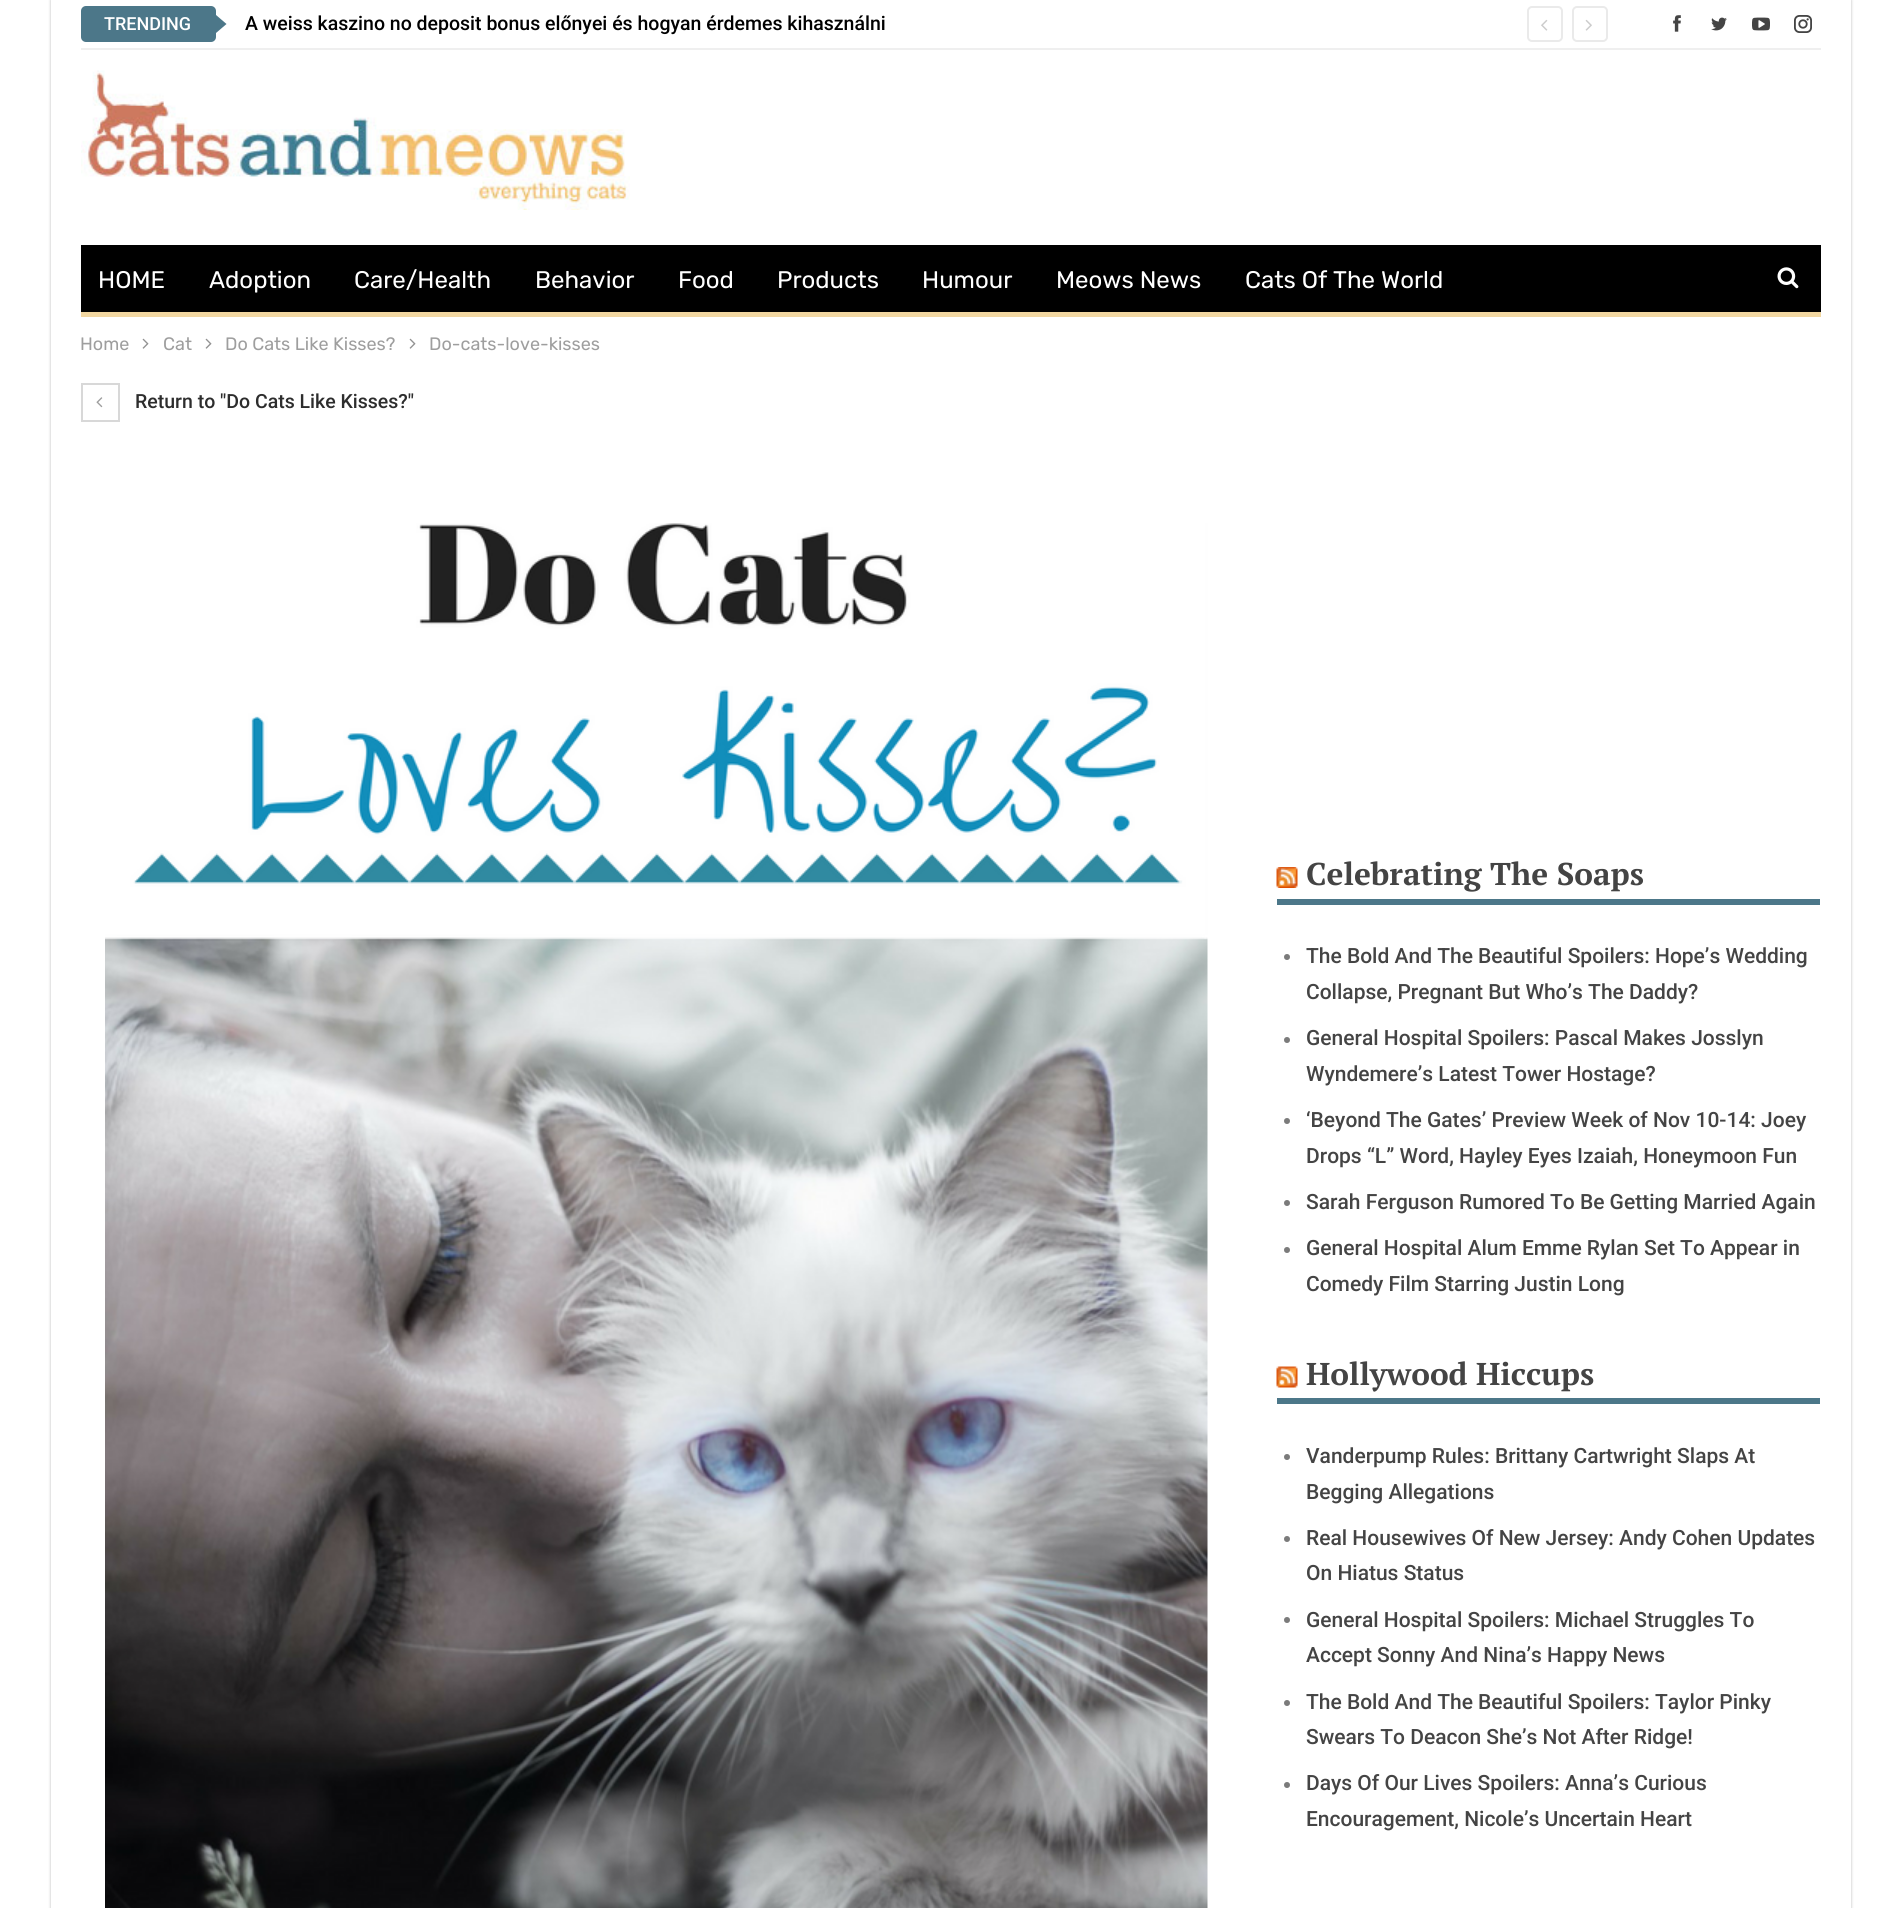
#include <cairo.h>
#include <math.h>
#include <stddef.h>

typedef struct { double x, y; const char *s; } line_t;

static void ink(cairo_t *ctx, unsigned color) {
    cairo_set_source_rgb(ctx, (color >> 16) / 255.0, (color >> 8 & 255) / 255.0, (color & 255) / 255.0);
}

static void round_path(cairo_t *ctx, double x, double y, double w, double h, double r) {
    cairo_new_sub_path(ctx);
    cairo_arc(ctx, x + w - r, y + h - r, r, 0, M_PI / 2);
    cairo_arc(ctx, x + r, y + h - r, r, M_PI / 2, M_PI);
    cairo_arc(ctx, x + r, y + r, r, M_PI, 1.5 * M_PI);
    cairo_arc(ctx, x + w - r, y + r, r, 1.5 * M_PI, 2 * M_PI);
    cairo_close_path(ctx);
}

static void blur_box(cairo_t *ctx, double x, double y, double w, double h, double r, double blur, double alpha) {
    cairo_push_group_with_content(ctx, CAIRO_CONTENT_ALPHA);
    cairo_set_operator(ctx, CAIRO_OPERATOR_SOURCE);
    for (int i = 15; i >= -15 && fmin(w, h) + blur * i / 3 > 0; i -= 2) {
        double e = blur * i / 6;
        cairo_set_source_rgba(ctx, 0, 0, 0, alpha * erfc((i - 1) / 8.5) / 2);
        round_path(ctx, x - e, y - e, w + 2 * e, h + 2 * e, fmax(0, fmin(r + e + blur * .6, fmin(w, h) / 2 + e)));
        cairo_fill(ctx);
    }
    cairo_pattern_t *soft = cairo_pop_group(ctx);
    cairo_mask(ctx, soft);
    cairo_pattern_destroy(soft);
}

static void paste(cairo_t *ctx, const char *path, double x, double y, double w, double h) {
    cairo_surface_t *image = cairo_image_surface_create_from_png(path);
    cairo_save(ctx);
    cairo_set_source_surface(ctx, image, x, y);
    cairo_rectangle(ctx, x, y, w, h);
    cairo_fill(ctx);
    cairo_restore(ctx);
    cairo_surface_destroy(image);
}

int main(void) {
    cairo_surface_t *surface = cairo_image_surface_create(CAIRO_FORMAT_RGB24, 1900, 1908);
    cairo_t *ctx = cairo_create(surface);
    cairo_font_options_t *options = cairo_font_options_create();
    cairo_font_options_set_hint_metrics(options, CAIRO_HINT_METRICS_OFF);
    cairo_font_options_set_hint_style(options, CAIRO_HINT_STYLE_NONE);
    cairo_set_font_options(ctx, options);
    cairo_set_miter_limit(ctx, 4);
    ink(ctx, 0xFFFFFF);
    cairo_paint(ctx);
    cairo_save(ctx);
    cairo_set_fill_rule(ctx, CAIRO_FILL_RULE_EVEN_ODD);
    cairo_new_path(ctx);
    cairo_move_to(ctx, 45, 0);
    cairo_line_to(ctx, 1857, 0);
    cairo_line_to(ctx, 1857, 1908);
    cairo_line_to(ctx, 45, 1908);
    cairo_close_path(ctx);
    cairo_move_to(ctx, 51, 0);
    cairo_line_to(ctx, 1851, 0);
    cairo_line_to(ctx, 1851, 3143);
    cairo_line_to(ctx, 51, 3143);
    cairo_close_path(ctx);
    cairo_clip(ctx);
    ink(ctx, 0x000000);
    blur_box(ctx, 51, 0, 1800, 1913, 0, 1.5, 0.27);
    cairo_restore(ctx);
    ink(ctx, 0xEFEFEF);
    cairo_rectangle(ctx, 81, 48, 1740, 2);
    cairo_fill(ctx);
    ink(ctx, 0x4C7789);
    round_path(ctx, 81, 6, 135, 36, 5);
    cairo_fill(ctx);
    cairo_select_font_face(ctx, "Roboto Medium", CAIRO_FONT_SLANT_NORMAL, CAIRO_FONT_WEIGHT_NORMAL);
    cairo_set_font_size(ctx, 18);
    ink(ctx, 0xFFFFFF);
    cairo_move_to(ctx, 104, 30);
    cairo_show_text(ctx, "TRENDING");
    ink(ctx, 0x4C7789);
    cairo_new_path(ctx);
    cairo_move_to(ctx, 216, 33);
    cairo_line_to(ctx, 216, 15);
    cairo_line_to(ctx, 226.5, 24);
    cairo_close_path(ctx);
    cairo_fill(ctx);
    cairo_set_font_size(ctx, 19.5);
    ink(ctx, 0x000000);
    cairo_move_to(ctx, 245, 30);
    cairo_show_text(ctx, "A weiss kaszino no deposit bonus előnyei és hogyan érdemes kihasználni");
    round_path(ctx, 1528, 7, 34, 34, 4);
    ink(ctx, 0xEAEAEA);
    cairo_stroke(ctx);
    paste(ctx, "media/1.png", 1541, 19, 7, 12);
    round_path(ctx, 1573, 7, 34, 34, 4);
    cairo_stroke(ctx);
    paste(ctx, "media/2.png", 1585, 19, 7, 12);
    paste(ctx, "media/3.png", 1673, 15, 8, 17);
    paste(ctx, "media/4.png", 1711, 17, 16, 14);
    paste(ctx, "media/5.png", 1752, 17, 18, 14);
    paste(ctx, "media/6.png", 1794, 15, 18, 18);
    paste(ctx, "media/7.png", 81, 70, 549, 140);
    ink(ctx, 0x000000);
    cairo_rectangle(ctx, 81, 245, 1740, 67);
    cairo_fill(ctx);
    ink(ctx, 0xF2D7A1);
    cairo_rectangle(ctx, 81, 312, 1740, 5);
    cairo_fill(ctx);
    cairo_select_font_face(ctx, "Rubik", CAIRO_FONT_SLANT_NORMAL, CAIRO_FONT_WEIGHT_NORMAL);
    cairo_set_font_size(ctx, 24);
    ink(ctx, 0xFFFFFF);
    {
        static const line_t items[] = {
            {98, 288, "HOME"},
            {209, 288, "Adoption"},
            {354, 288, "Care/Health"},
            {535, 288, "Behavior"},
            {678, 288, "Food"},
            {777, 288, "Products"},
            {922, 288, "Humour"},
            {1056, 288, "Meows News"},
            {1245, 288, "Cats Of The World"},
        };
        for (size_t i = 0; i < sizeof items / sizeof *items; i++) {
            cairo_move_to(ctx, items[i].x, items[i].y);
            cairo_show_text(ctx, items[i].s);
        }
    }
    paste(ctx, "media/8.png", 1777, 267, 22, 22);
    cairo_set_font_size(ctx, 18);
    ink(ctx, 0x9E9E9E);
    cairo_move_to(ctx, 80, 350);
    cairo_show_text(ctx, "Home");
    paste(ctx, "media/9.png", 142, 338, 7, 11);
    cairo_move_to(ctx, 163, 350);
    cairo_show_text(ctx, "Cat");
    paste(ctx, "media/9.png", 205, 338, 7, 11);
    cairo_move_to(ctx, 225, 350);
    cairo_show_text(ctx, "Do Cats Like Kisses?");
    paste(ctx, "media/9.png", 409, 338, 7, 11);
    cairo_move_to(ctx, 429, 350);
    cairo_show_text(ctx, "Do-cats-love-kisses");
    cairo_rectangle(ctx, 82, 384, 37, 37);
    ink(ctx, 0xD8D8D8);
    cairo_stroke(ctx);
    paste(ctx, "media/10.png", 96, 397, 7, 11);
    cairo_select_font_face(ctx, "Roboto Medium", CAIRO_FONT_SLANT_NORMAL, CAIRO_FONT_WEIGHT_NORMAL);
    cairo_set_font_size(ctx, 19.5);
    ink(ctx, 0x2D2D2D);
    cairo_move_to(ctx, 135, 408);
    cairo_show_text(ctx, "Return to \"Do Cats Like Kisses?\"");
    paste(ctx, "media/11.png", 105, 523, 1103, 1385);
    paste(ctx, "media/12.png", 1276, 867, 22, 21);
    cairo_select_font_face(ctx, "PT Serif", CAIRO_FONT_SLANT_NORMAL, CAIRO_FONT_WEIGHT_BOLD);
    cairo_set_font_size(ctx, 31.5);
    ink(ctx, 0x444444);
    cairo_move_to(ctx, 1306, 885);
    cairo_show_text(ctx, "Celebrating The Soaps");
    ink(ctx, 0x4C7789);
    cairo_rectangle(ctx, 1277, 899, 543, 6);
    cairo_fill(ctx);
    ink(ctx, 0x7B7B7B);
    cairo_arc(ctx, 1287, 957, 3, 0, 2 * M_PI);
    cairo_fill(ctx);
    cairo_select_font_face(ctx, "Roboto Medium", CAIRO_FONT_SLANT_NORMAL, CAIRO_FONT_WEIGHT_NORMAL);
    cairo_set_font_size(ctx, 21);
    ink(ctx, 0x444444);
    cairo_move_to(ctx, 1306, 963);
    cairo_show_text(ctx, "The Bold And The Beautiful Spoilers: Hope’s Wedding");
    cairo_move_to(ctx, 1306, 999);
    cairo_show_text(ctx, "Collapse, Pregnant But Who’s The Daddy?");
    ink(ctx, 0x7B7B7B);
    cairo_new_path(ctx);
    cairo_arc(ctx, 1287, 1040, 3, 0, 2 * M_PI);
    cairo_fill(ctx);
    ink(ctx, 0x444444);
    cairo_move_to(ctx, 1306, 1045);
    cairo_show_text(ctx, "General Hospital Spoilers: Pascal Makes Josslyn");
    cairo_move_to(ctx, 1306, 1081);
    cairo_show_text(ctx, "Wyndemere’s Latest Tower Hostage?");
    ink(ctx, 0x7B7B7B);
    cairo_new_path(ctx);
    cairo_arc(ctx, 1287, 1121, 3, 0, 2 * M_PI);
    cairo_fill(ctx);
    ink(ctx, 0x444444);
    cairo_move_to(ctx, 1306, 1127);
    cairo_show_text(ctx, "‘Beyond The Gates’ Preview Week of Nov 10-14: Joey");
    cairo_move_to(ctx, 1306, 1163);
    cairo_show_text(ctx, "Drops “L” Word, Hayley Eyes Izaiah, Honeymoon Fun");
    ink(ctx, 0x7B7B7B);
    cairo_new_path(ctx);
    cairo_arc(ctx, 1287, 1203, 3, 0, 2 * M_PI);
    cairo_fill(ctx);
    ink(ctx, 0x444444);
    cairo_move_to(ctx, 1306, 1209);
    cairo_show_text(ctx, "Sarah Ferguson Rumored To Be Getting Married Again");
    ink(ctx, 0x7B7B7B);
    cairo_new_path(ctx);
    cairo_arc(ctx, 1287, 1250, 3, 0, 2 * M_PI);
    cairo_fill(ctx);
    ink(ctx, 0x444444);
    cairo_move_to(ctx, 1306, 1255);
    cairo_show_text(ctx, "General Hospital Alum Emme Rylan Set To Appear in");
    cairo_move_to(ctx, 1306, 1291);
    cairo_show_text(ctx, "Comedy Film Starring Justin Long");
    paste(ctx, "media/13.png", 1276, 1366, 22, 22);
    cairo_select_font_face(ctx, "PT Serif", CAIRO_FONT_SLANT_NORMAL, CAIRO_FONT_WEIGHT_BOLD);
    cairo_set_font_size(ctx, 31.5);
    cairo_move_to(ctx, 1306, 1385);
    cairo_show_text(ctx, "Hollywood Hiccups");
    ink(ctx, 0x4C7789);
    cairo_rectangle(ctx, 1277, 1398, 543, 6);
    cairo_fill(ctx);
    ink(ctx, 0x7B7B7B);
    cairo_arc(ctx, 1287, 1457, 3, 0, 2 * M_PI);
    cairo_fill(ctx);
    cairo_select_font_face(ctx, "Roboto Medium", CAIRO_FONT_SLANT_NORMAL, CAIRO_FONT_WEIGHT_NORMAL);
    cairo_set_font_size(ctx, 21);
    ink(ctx, 0x444444);
    cairo_move_to(ctx, 1306, 1463);
    cairo_show_text(ctx, "Vanderpump Rules: Brittany Cartwright Slaps At");
    cairo_move_to(ctx, 1306, 1499);
    cairo_show_text(ctx, "Begging Allegations");
    ink(ctx, 0x7B7B7B);
    cairo_new_path(ctx);
    cairo_arc(ctx, 1287, 1539, 3, 0, 2 * M_PI);
    cairo_fill(ctx);
    ink(ctx, 0x444444);
    cairo_move_to(ctx, 1306, 1545);
    cairo_show_text(ctx, "Real Housewives Of New Jersey: Andy Cohen Updates");
    cairo_move_to(ctx, 1306, 1580);
    cairo_show_text(ctx, "On Hiatus Status");
    ink(ctx, 0x7B7B7B);
    cairo_new_path(ctx);
    cairo_arc(ctx, 1287, 1620, 3, 0, 2 * M_PI);
    cairo_fill(ctx);
    ink(ctx, 0x444444);
    cairo_move_to(ctx, 1306, 1627);
    cairo_show_text(ctx, "General Hospital Spoilers: Michael Struggles To");
    cairo_move_to(ctx, 1306, 1662);
    cairo_show_text(ctx, "Accept Sonny And Nina’s Happy News");
    ink(ctx, 0x7B7B7B);
    cairo_new_path(ctx);
    cairo_arc(ctx, 1287, 1703, 3, 0, 2 * M_PI);
    cairo_fill(ctx);
    ink(ctx, 0x444444);
    cairo_move_to(ctx, 1306, 1709);
    cairo_show_text(ctx, "The Bold And The Beautiful Spoilers: Taylor Pinky");
    cairo_move_to(ctx, 1306, 1744);
    cairo_show_text(ctx, "Swears To Deacon She’s Not After Ridge!");
    ink(ctx, 0x7B7B7B);
    cairo_new_path(ctx);
    cairo_arc(ctx, 1287, 1785, 3, 0, 2 * M_PI);
    cairo_fill(ctx);
    ink(ctx, 0x444444);
    cairo_move_to(ctx, 1306, 1790);
    cairo_show_text(ctx, "Days Of Our Lives Spoilers: Anna’s Curious");
    cairo_move_to(ctx, 1306, 1826);
    cairo_show_text(ctx, "Encouragement, Nicole’s Uncertain Heart");
    cairo_surface_write_to_png(surface, "image.png");
    cairo_font_options_destroy(options);
    cairo_destroy(ctx);
    cairo_surface_destroy(surface);
    return 0;
}
